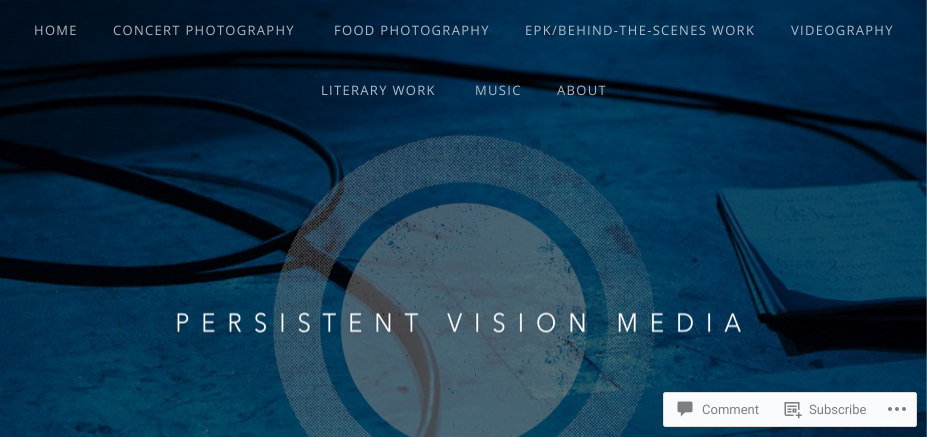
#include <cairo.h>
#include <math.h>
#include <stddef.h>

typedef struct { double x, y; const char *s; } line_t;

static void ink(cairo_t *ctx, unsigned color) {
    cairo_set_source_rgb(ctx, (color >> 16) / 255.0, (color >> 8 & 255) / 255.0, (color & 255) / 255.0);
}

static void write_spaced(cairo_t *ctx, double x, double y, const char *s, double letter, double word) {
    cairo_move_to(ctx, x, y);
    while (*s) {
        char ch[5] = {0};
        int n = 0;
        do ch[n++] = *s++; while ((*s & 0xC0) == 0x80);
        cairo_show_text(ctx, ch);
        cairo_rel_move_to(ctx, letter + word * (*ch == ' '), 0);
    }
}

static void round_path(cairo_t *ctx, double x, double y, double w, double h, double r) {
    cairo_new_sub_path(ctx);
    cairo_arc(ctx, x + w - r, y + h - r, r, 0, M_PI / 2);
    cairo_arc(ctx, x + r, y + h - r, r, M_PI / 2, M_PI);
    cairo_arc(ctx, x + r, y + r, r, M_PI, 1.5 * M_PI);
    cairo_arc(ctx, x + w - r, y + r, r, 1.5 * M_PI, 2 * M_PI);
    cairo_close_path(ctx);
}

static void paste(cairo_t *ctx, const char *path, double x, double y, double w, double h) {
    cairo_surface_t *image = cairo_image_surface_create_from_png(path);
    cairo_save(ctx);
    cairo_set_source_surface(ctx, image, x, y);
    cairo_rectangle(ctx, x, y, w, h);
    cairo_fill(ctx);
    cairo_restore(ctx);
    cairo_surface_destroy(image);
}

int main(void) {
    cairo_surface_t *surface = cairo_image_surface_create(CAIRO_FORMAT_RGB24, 927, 437);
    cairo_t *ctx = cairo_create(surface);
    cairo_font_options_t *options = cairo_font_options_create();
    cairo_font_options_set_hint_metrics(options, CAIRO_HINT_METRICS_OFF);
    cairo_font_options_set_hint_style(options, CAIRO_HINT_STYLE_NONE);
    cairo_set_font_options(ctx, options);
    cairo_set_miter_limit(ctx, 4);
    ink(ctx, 0xFFFFFF);
    cairo_paint(ctx);
    paste(ctx, "media/1.png", 0, 0, 927, 437);
    cairo_select_font_face(ctx, "Open Sans", CAIRO_FONT_SLANT_NORMAL, CAIRO_FONT_WEIGHT_NORMAL);
    cairo_set_font_size(ctx, 13);
    ink(ctx, 0xB3B7BC);
    write_spaced(ctx, 34, 35, "HOME", 1.3, 0);
    write_spaced(ctx, 113, 35, "CONCERT PHOTOGRAPHY", 1.3, 0);
    ink(ctx, 0xB3BDC7);
    {
        static const line_t items[] = {
            {334, 35, "FOOD PHOTOGRAPHY"},
            {525, 35, "EPK/BEHIND-THE-SCENES WORK"},
            {791, 35, "VIDEOGRAPHY"},
            {321, 95, "LITERARY WORK"},
            {475, 95, "MUSIC"},
        };
        for (size_t i = 0; i < sizeof items / sizeof *items; i++) {
            write_spaced(ctx, items[i].x, items[i].y, items[i].s, 1.3, 0);
        }
    }
    ink(ctx, 0xB3B7BC);
    write_spaced(ctx, 557, 95, "ABOUT", 1.3, 0);
    paste(ctx, "media/2.png", 177, 134, 564, 303);
    cairo_set_source_rgba(ctx, 1, 1, 1, 0.98);
    round_path(ctx, 663, 392, 254, 35, 3);
    cairo_fill(ctx);
    round_path(ctx, 663.5, 392.5, 253, 34, 2.5);
    cairo_set_source_rgba(ctx, 0.863, 0.863, 0.871, 0.98);
    cairo_set_line_width(ctx, 1);
    cairo_stroke(ctx);
    paste(ctx, "media/3.png", 677, 401, 16, 16);
    cairo_select_font_face(ctx, "Roboto", CAIRO_FONT_SLANT_NORMAL, CAIRO_FONT_WEIGHT_NORMAL);
    ink(ctx, 0x7B7F84);
    cairo_move_to(ctx, 702, 414);
    cairo_show_text(ctx, "Comment");
    paste(ctx, "media/4.png", 784, 402, 18, 17);
    cairo_move_to(ctx, 809, 414);
    cairo_show_text(ctx, "Subscribe");
    paste(ctx, "media/5.png", 888, 407, 18, 4);
    cairo_surface_write_to_png(surface, "image.png");
    cairo_font_options_destroy(options);
    cairo_destroy(ctx);
    cairo_surface_destroy(surface);
    return 0;
}
